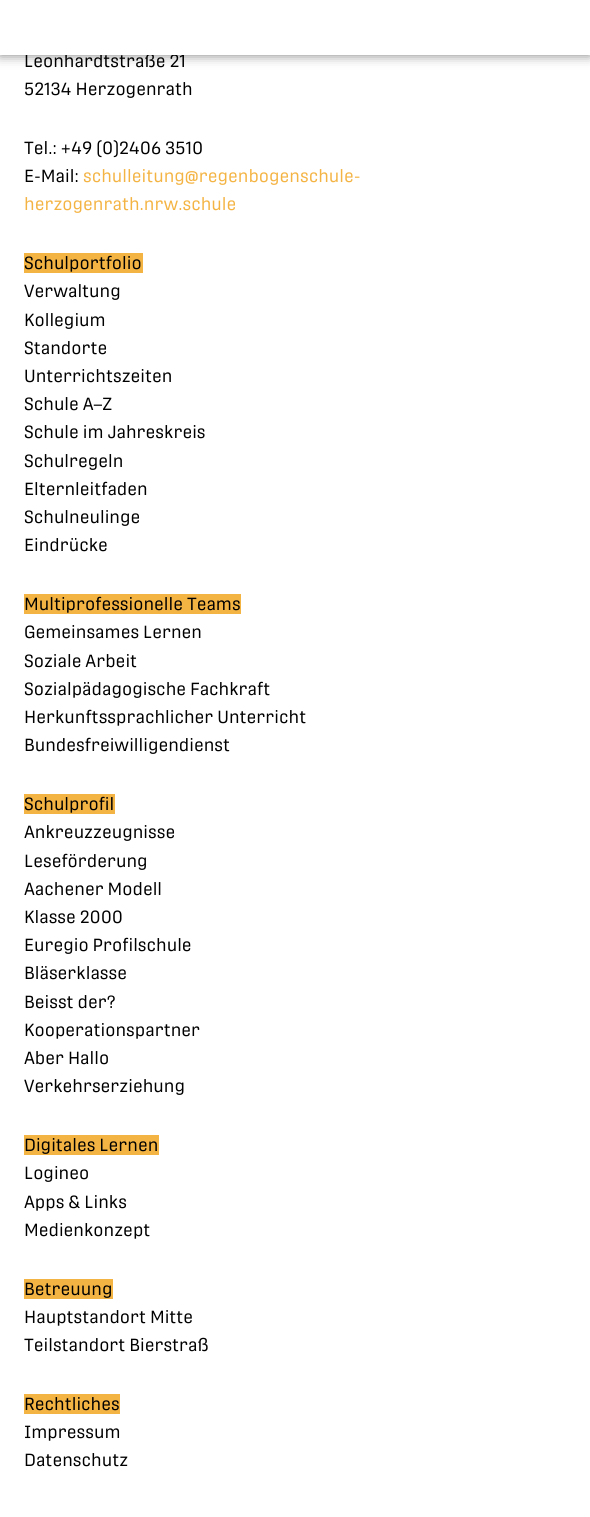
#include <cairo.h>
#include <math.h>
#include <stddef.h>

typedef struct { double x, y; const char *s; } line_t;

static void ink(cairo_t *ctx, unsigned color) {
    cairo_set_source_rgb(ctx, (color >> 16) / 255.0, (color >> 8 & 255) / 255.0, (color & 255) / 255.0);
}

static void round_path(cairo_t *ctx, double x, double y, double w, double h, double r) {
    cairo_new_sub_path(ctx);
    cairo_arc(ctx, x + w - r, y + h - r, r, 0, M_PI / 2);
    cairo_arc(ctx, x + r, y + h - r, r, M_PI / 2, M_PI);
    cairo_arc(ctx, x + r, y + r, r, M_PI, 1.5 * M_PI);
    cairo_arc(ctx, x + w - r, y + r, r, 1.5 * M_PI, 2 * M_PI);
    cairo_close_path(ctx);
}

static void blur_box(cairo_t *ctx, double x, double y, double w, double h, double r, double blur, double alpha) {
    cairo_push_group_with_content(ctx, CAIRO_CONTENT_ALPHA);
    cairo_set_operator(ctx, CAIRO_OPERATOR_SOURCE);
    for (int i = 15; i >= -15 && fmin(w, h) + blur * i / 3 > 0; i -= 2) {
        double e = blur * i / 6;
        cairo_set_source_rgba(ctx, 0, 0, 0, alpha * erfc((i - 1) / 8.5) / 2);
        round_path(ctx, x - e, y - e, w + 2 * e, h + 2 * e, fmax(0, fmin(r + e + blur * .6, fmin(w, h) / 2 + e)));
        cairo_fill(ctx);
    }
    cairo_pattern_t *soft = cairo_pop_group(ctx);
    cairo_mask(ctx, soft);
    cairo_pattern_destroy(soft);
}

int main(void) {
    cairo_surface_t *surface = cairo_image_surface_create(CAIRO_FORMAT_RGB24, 590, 1517);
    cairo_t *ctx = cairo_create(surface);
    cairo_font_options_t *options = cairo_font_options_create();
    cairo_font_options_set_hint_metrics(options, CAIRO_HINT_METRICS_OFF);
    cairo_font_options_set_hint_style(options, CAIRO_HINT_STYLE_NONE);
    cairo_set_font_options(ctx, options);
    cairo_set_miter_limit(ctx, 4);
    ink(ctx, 0xFFFFFF);
    cairo_paint(ctx);
    ink(ctx, 0x000000);
    blur_box(ctx, 0, 0, 590, 55, 0, 6, 0.5);
    cairo_select_font_face(ctx, "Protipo", CAIRO_FONT_SLANT_NORMAL, CAIRO_FONT_WEIGHT_NORMAL);
    cairo_set_font_size(ctx, 17.5);
    ink(ctx, 0x000000);
    cairo_move_to(ctx, 24, 67);
    cairo_show_text(ctx, "Leonhardtstraße 21");
    ink(ctx, 0xFFFFFF);
    cairo_rectangle(ctx, 0, 0, 590, 55);
    cairo_fill(ctx);
    ink(ctx, 0x000000);
    {
        static const line_t items[] = {
            {24, 95, "52134 Herzogenrath"},
            {24, 154, "Tel.: +49 (0)2406 3510"},
            {24, 182, "E-Mail:"},
        };
        for (size_t i = 0; i < sizeof items / sizeof *items; i++) {
            cairo_move_to(ctx, items[i].x, items[i].y);
            cairo_show_text(ctx, items[i].s);
        }
    }
    ink(ctx, 0xF4B444);
    cairo_move_to(ctx, 83, 182);
    cairo_show_text(ctx, "schulleitung@regenbogenschule-");
    cairo_move_to(ctx, 24, 210);
    cairo_show_text(ctx, "herzogenrath.nrw.schule");
    cairo_rectangle(ctx, 24, 253, 119, 20);
    cairo_fill(ctx);
    ink(ctx, 0x000000);
    {
        static const line_t items[] = {
            {24, 269, "Schulportfolio"},
            {24, 297, "Verwaltung"},
            {24, 326, "Kollegium"},
            {24, 354, "Standorte"},
            {24, 382, "Unterrichtszeiten"},
            {24, 410, "Schule A–Z"},
            {24, 438, "Schule im Jahreskreis"},
            {24, 467, "Schulregeln"},
            {24, 495, "Elternleitfaden"},
            {24, 523, "Schulneulinge"},
            {24, 551, "Eindrücke"},
        };
        for (size_t i = 0; i < sizeof items / sizeof *items; i++) {
            cairo_move_to(ctx, items[i].x, items[i].y);
            cairo_show_text(ctx, items[i].s);
        }
    }
    ink(ctx, 0xF4B444);
    cairo_rectangle(ctx, 24, 594, 217, 20);
    cairo_fill(ctx);
    ink(ctx, 0x000000);
    {
        static const line_t items[] = {
            {24, 610, "Multiprofessionelle Teams"},
            {24, 638, "Gemeinsames Lernen"},
            {24, 667, "Soziale Arbeit"},
            {24, 695, "Sozialpädagogische Fachkraft"},
            {24, 723, "Herkunftssprachlicher Unterricht"},
            {24, 751, "Bundesfreiwilligendienst"},
        };
        for (size_t i = 0; i < sizeof items / sizeof *items; i++) {
            cairo_move_to(ctx, items[i].x, items[i].y);
            cairo_show_text(ctx, items[i].s);
        }
    }
    ink(ctx, 0xF4B444);
    cairo_rectangle(ctx, 24, 794, 91, 20);
    cairo_fill(ctx);
    ink(ctx, 0x000000);
    {
        static const line_t items[] = {
            {24, 810, "Schulprofil"},
            {24, 838, "Ankreuzzeugnisse"},
            {24, 867, "Leseförderung"},
            {24, 895, "Aachener Modell"},
            {24, 923, "Klasse 2000"},
            {24, 951, "Euregio Profilschule"},
            {24, 979, "Bläserklasse"},
            {24, 1008, "Beisst der?"},
            {24, 1036, "Kooperationspartner"},
            {24, 1064, "Aber Hallo"},
            {24, 1092, "Verkehrserziehung"},
        };
        for (size_t i = 0; i < sizeof items / sizeof *items; i++) {
            cairo_move_to(ctx, items[i].x, items[i].y);
            cairo_show_text(ctx, items[i].s);
        }
    }
    ink(ctx, 0xF4B444);
    cairo_rectangle(ctx, 24, 1135, 135, 20);
    cairo_fill(ctx);
    ink(ctx, 0x000000);
    {
        static const line_t items[] = {
            {24, 1151, "Digitales Lernen"},
            {24, 1179, "Logineo"},
            {24, 1208, "Apps & Links"},
            {24, 1236, "Medienkonzept"},
        };
        for (size_t i = 0; i < sizeof items / sizeof *items; i++) {
            cairo_move_to(ctx, items[i].x, items[i].y);
            cairo_show_text(ctx, items[i].s);
        }
    }
    ink(ctx, 0xF4B444);
    cairo_rectangle(ctx, 24, 1279, 89, 20);
    cairo_fill(ctx);
    ink(ctx, 0x000000);
    {
        static const line_t items[] = {
            {24, 1295, "Betreuung"},
            {24, 1323, "Hauptstandort Mitte"},
            {24, 1351, "Teilstandort Bierstraß"},
        };
        for (size_t i = 0; i < sizeof items / sizeof *items; i++) {
            cairo_move_to(ctx, items[i].x, items[i].y);
            cairo_show_text(ctx, items[i].s);
        }
    }
    ink(ctx, 0xF4B444);
    cairo_rectangle(ctx, 24, 1394, 96, 20);
    cairo_fill(ctx);
    ink(ctx, 0x000000);
    {
        static const line_t items[] = {
            {24, 1410, "Rechtliches"},
            {24, 1438, "Impressum"},
            {24, 1466, "Datenschutz"},
        };
        for (size_t i = 0; i < sizeof items / sizeof *items; i++) {
            cairo_move_to(ctx, items[i].x, items[i].y);
            cairo_show_text(ctx, items[i].s);
        }
    }
    cairo_surface_write_to_png(surface, "image.png");
    cairo_font_options_destroy(options);
    cairo_destroy(ctx);
    cairo_surface_destroy(surface);
    return 0;
}
